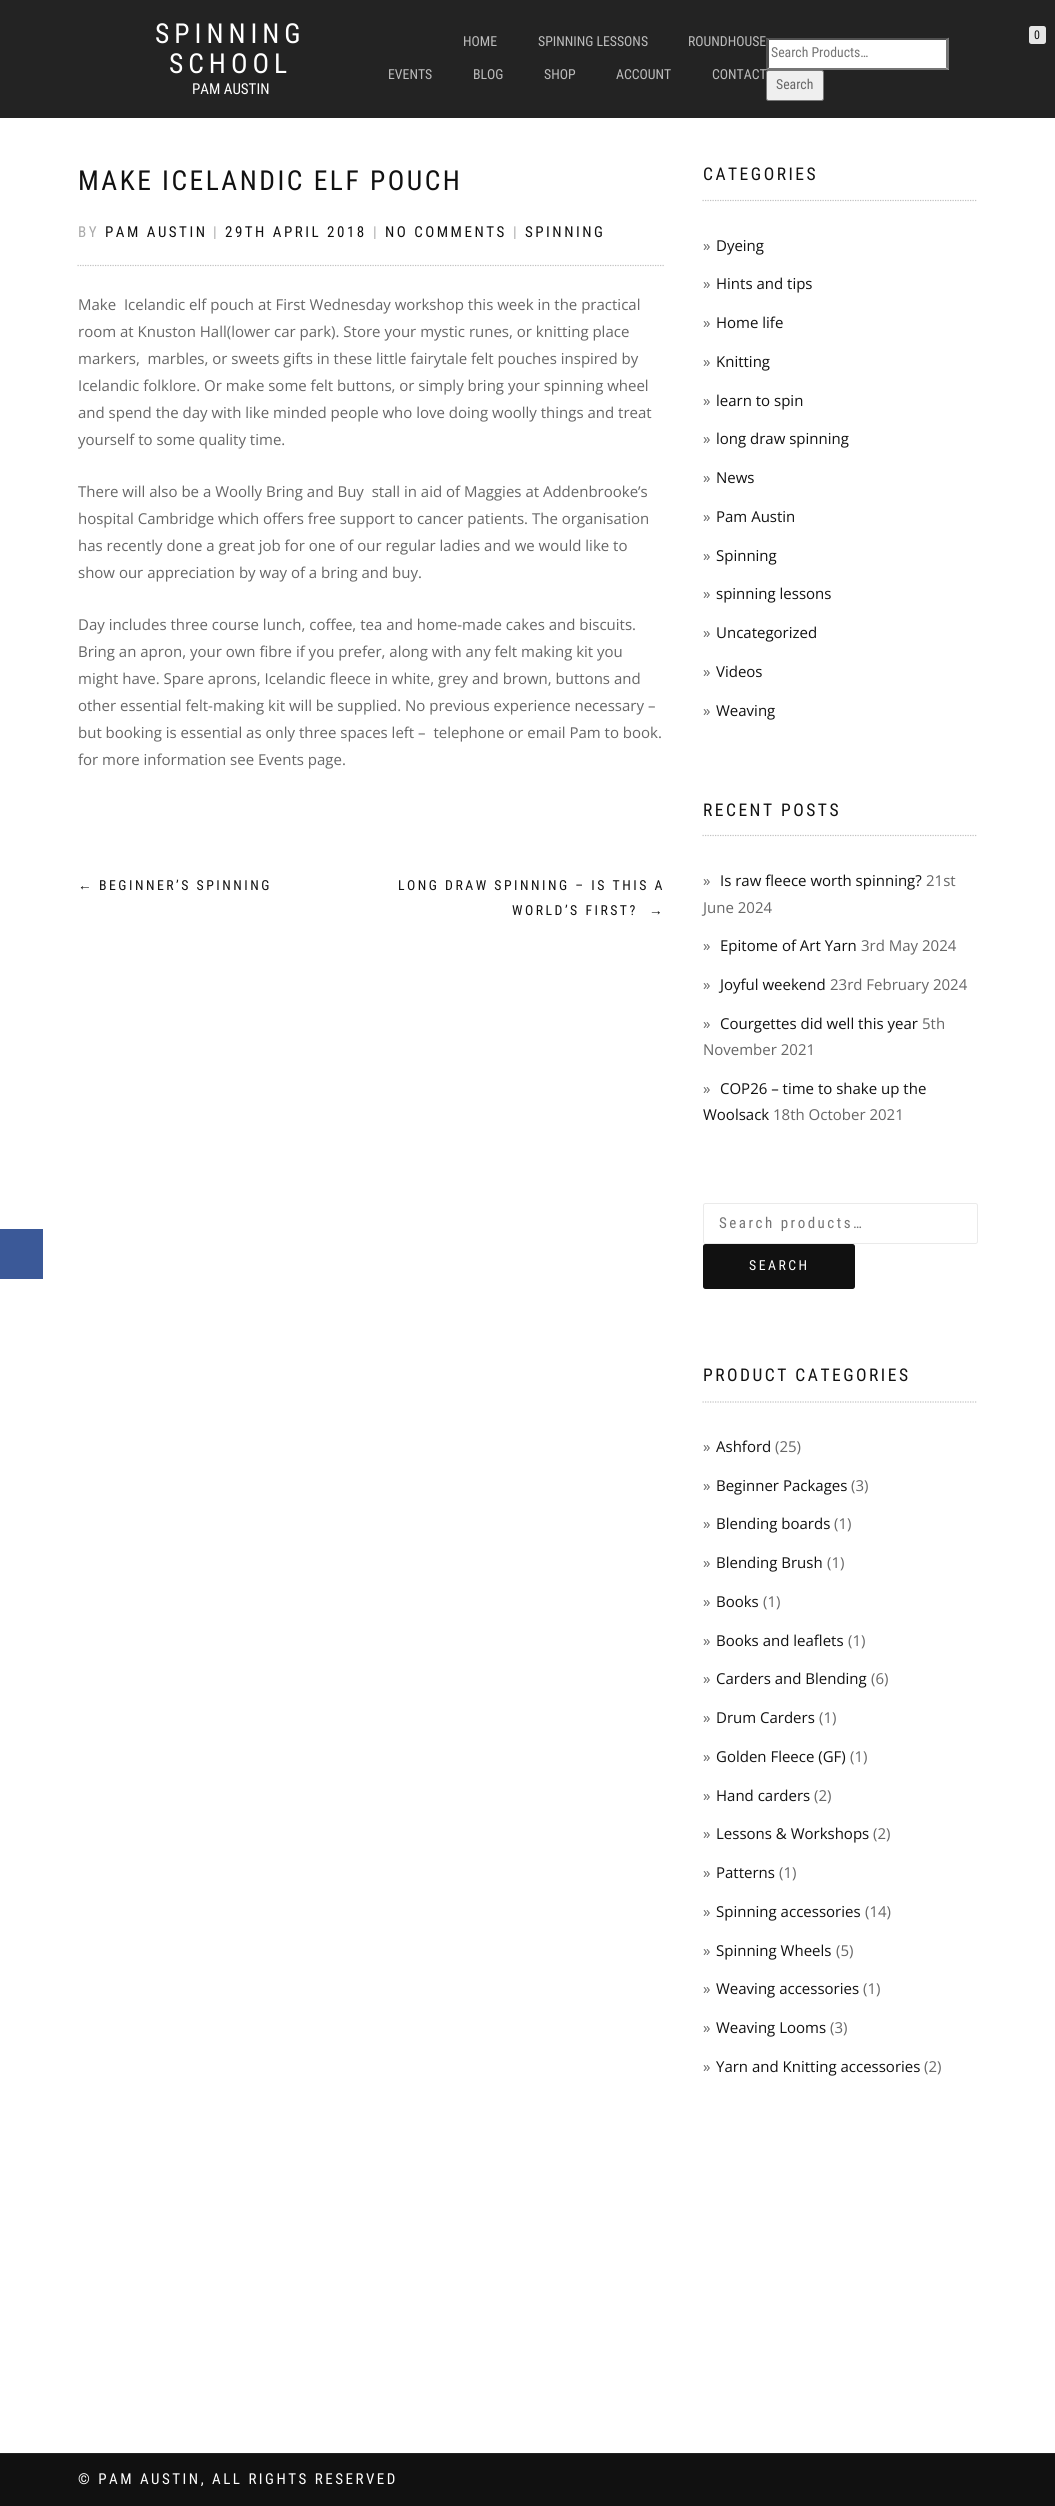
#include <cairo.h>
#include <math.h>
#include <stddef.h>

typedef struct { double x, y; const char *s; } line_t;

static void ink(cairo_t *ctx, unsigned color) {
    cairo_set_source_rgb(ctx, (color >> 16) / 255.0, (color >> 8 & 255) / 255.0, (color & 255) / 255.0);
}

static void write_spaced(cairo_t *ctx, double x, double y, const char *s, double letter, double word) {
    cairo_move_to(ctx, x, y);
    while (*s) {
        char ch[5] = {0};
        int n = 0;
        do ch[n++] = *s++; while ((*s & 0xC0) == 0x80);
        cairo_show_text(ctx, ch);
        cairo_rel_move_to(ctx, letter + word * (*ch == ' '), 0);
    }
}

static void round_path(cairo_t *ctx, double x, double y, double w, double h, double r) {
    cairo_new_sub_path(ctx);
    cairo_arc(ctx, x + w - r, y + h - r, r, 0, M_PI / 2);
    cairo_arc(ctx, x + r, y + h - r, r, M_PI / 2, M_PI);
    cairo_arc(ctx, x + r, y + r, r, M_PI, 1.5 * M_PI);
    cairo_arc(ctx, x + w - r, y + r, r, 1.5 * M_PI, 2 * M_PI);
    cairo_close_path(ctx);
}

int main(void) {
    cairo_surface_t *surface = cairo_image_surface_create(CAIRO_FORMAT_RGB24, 1055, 2506);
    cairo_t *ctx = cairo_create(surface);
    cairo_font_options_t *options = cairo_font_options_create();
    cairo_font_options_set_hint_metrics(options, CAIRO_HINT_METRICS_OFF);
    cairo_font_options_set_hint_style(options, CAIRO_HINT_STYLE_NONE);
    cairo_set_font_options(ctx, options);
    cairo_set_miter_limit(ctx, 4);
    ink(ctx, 0xFFFFFF);
    cairo_paint(ctx);
    ink(ctx, 0x232323);
    cairo_rectangle(ctx, 0, 0, 1055, 118);
    cairo_fill(ctx);
    cairo_select_font_face(ctx, "Roboto Condensed", CAIRO_FONT_SLANT_NORMAL, CAIRO_FONT_WEIGHT_NORMAL);
    cairo_set_font_size(ctx, 27.5);
    ink(ctx, 0xFFFFFF);
    write_spaced(ctx, 155, 43, "SPINNING", 5, 0);
    write_spaced(ctx, 169, 73, "SCHOOL", 5, 0);
    cairo_set_font_size(ctx, 15);
    cairo_move_to(ctx, 192, 94);
    cairo_show_text(ctx, "PAM AUSTIN");
    cairo_set_font_size(ctx, 13.75);
    ink(ctx, 0xBDBDBD);
    {
        static const line_t items[] = {
            {463, 46, "HOME"},
            {538, 46, "SPINNING LESSONS"},
            {688, 46, "ROUNDHOUSE"},
            {388, 79, "EVENTS"},
            {473, 79, "BLOG"},
            {544, 79, "SHOP"},
            {616, 79, "ACCOUNT"},
        };
        for (size_t i = 0; i < sizeof items / sizeof *items; i++) {
            cairo_move_to(ctx, items[i].x, items[i].y);
            cairo_show_text(ctx, items[i].s);
        }
    }
    ink(ctx, 0xFFFFFF);
    cairo_rectangle(ctx, 766, 38, 183, 32);
    cairo_fill(ctx);
    ink(ctx, 0x4F4F4F);
    cairo_new_path(ctx);
    cairo_move_to(ctx, 766, 38);
    cairo_line_to(ctx, 949, 38);
    cairo_line_to(ctx, 946, 40);
    cairo_line_to(ctx, 769, 40);
    cairo_close_path(ctx);
    cairo_fill(ctx);
    ink(ctx, 0x767676);
    cairo_new_path(ctx);
    cairo_move_to(ctx, 949, 37.5);
    cairo_line_to(ctx, 949, 70);
    cairo_line_to(ctx, 946, 67.5);
    cairo_line_to(ctx, 946, 40);
    cairo_close_path(ctx);
    cairo_fill(ctx);
    cairo_new_path(ctx);
    cairo_move_to(ctx, 949, 70);
    cairo_line_to(ctx, 766, 70);
    cairo_line_to(ctx, 769, 68);
    cairo_line_to(ctx, 946, 68);
    cairo_close_path(ctx);
    cairo_fill(ctx);
    ink(ctx, 0x4F4F4F);
    cairo_new_path(ctx);
    cairo_move_to(ctx, 766, 70);
    cairo_line_to(ctx, 766, 37.5);
    cairo_line_to(ctx, 769, 40);
    cairo_line_to(ctx, 769, 67.5);
    cairo_close_path(ctx);
    cairo_fill(ctx);
    ink(ctx, 0xEFEFEF);
    round_path(ctx, 766.5, 70.5, 57, 30, 2);
    cairo_fill_preserve(ctx);
    ink(ctx, 0x767676);
    cairo_set_line_width(ctx, 1);
    cairo_stroke(ctx);
    ink(ctx, 0xBDBDBD);
    cairo_move_to(ctx, 712, 79);
    cairo_show_text(ctx, "CONTACT");
    ink(ctx, 0xE5E5E5);
    round_path(ctx, 1029, 26, 17, 18, 2.5);
    cairo_fill(ctx);
    cairo_set_font_size(ctx, 12);
    ink(ctx, 0x111111);
    cairo_move_to(ctx, 1034, 39);
    cairo_show_text(ctx, "0");
    cairo_set_font_size(ctx, 13.75);
    ink(ctx, 0x757575);
    cairo_move_to(ctx, 771, 57);
    cairo_show_text(ctx, "Search Products…");
    ink(ctx, 0x666666);
    cairo_move_to(ctx, 776, 89);
    cairo_show_text(ctx, "Search");
    ink(ctx, 0x3B5998);
    cairo_rectangle(ctx, 0, 1229, 43, 50);
    cairo_fill(ctx);
    cairo_set_font_size(ctx, 27.5);
    ink(ctx, 0x111111);
    write_spaced(ctx, 78, 190, "MAKE ICELANDIC ELF POUCH", 2.5, 0);
    cairo_set_font_size(ctx, 15);
    ink(ctx, 0xAAAAAA);
    write_spaced(ctx, 78, 237, "BY", 2.5, 0);
    ink(ctx, 0x111111);
    write_spaced(ctx, 105, 237, "PAM AUSTIN", 2.5, 0);
    ink(ctx, 0xAAAAAA);
    write_spaced(ctx, 213, 237, "|", 2.5, 0);
    ink(ctx, 0x111111);
    write_spaced(ctx, 225, 237, "29TH APRIL 2018", 2.5, 0);
    ink(ctx, 0xAAAAAA);
    write_spaced(ctx, 373, 237, "|", 2.5, 0);
    ink(ctx, 0x111111);
    write_spaced(ctx, 385, 237, "NO COMMENTS", 2.5, 0);
    ink(ctx, 0xAAAAAA);
    write_spaced(ctx, 513, 237, "|", 2.5, 0);
    ink(ctx, 0x111111);
    write_spaced(ctx, 525, 237, "SPINNING", 2.5, 0);
    cairo_new_path(ctx);
    cairo_move_to(ctx, 77.5, 265.5);
    cairo_line_to(ctx, 665, 265.5);
    ink(ctx, 0xC2C2C2);
    cairo_set_line_width(ctx, 1.2);
    cairo_set_dash(ctx, (double[]){1.25, 1.25}, 2, 0);
    cairo_stroke(ctx);
    cairo_select_font_face(ctx, "Open Sans", CAIRO_FONT_SLANT_NORMAL, CAIRO_FONT_WEIGHT_NORMAL);
    ink(ctx, 0x666666);
    {
        static const line_t items[] = {
            {78, 310, "Make  Icelandic elf pouch at First Wednesday workshop this week in the practical"},
            {78, 337, "room at Knuston Hall(lower car park). Store your mystic runes, or knitting place"},
            {78, 364, "markers,  marbles, or sweets gifts in these little fairytale felt pouches inspired by"},
            {78, 391, "Icelandic folklore. Or make some felt buttons, or simply bring your spinning wheel"},
            {78, 418, "and spend the day with like minded people who love doing woolly things and treat"},
            {78, 445, "yourself to some quality time."},
            {78, 497, "There will also be a Woolly Bring and Buy  stall in aid of Maggies at Addenbrooke’s"},
            {78, 524, "hospital Cambridge which offers free support to cancer patients. The organisation"},
            {78, 551, "has recently done a great job for one of our regular ladies and we would like to"},
            {78, 578, "show our appreciation by way of a bring and buy."},
            {78, 630, "Day includes three course lunch, coffee, tea and home-made cakes and biscuits."},
            {78, 657, "Bring an apron, your own fibre if you prefer, along with any felt making kit you"},
            {78, 684, "might have. Spare aprons, Icelandic fleece in white, grey and brown, buttons and"},
            {78, 711, "other essential felt-making kit will be supplied. No previous experience necessary –"},
            {78, 738, "but booking is essential as only three spaces left –  telephone or email Pam to book."},
            {78, 765, "for more information see Events page."},
        };
        for (size_t i = 0; i < sizeof items / sizeof *items; i++) {
            cairo_move_to(ctx, items[i].x, items[i].y);
            cairo_show_text(ctx, items[i].s);
        }
    }
    cairo_select_font_face(ctx, "Liberation Sans", CAIRO_FONT_SLANT_NORMAL, CAIRO_FONT_WEIGHT_NORMAL);
    cairo_set_font_size(ctx, 13.75);
    ink(ctx, 0x111111);
    write_spaced(ctx, 78, 890, "←", 2.5, 0);
    cairo_select_font_face(ctx, "Roboto Condensed", CAIRO_FONT_SLANT_NORMAL, CAIRO_FONT_WEIGHT_NORMAL);
    {
        static const line_t items[] = {
            {99, 890, "BEGINNER’S SPINNING"},
            {398, 890, "LONG DRAW SPINNING – IS THIS A"},
            {512, 915, "WORLD’S FIRST?"},
        };
        for (size_t i = 0; i < sizeof items / sizeof *items; i++) {
            write_spaced(ctx, items[i].x, items[i].y, items[i].s, 2.5, 0);
        }
    }
    cairo_select_font_face(ctx, "Liberation Sans", CAIRO_FONT_SLANT_NORMAL, CAIRO_FONT_WEIGHT_NORMAL);
    write_spaced(ctx, 649, 915, "→", 2.5, 0);
    cairo_new_path(ctx);
    cairo_move_to(ctx, 702.5, 200.5);
    cairo_line_to(ctx, 977.5, 200.5);
    ink(ctx, 0xC2C2C2);
    cairo_stroke(ctx);
    cairo_select_font_face(ctx, "Roboto Condensed", CAIRO_FONT_SLANT_NORMAL, CAIRO_FONT_WEIGHT_NORMAL);
    cairo_set_font_size(ctx, 17.5);
    ink(ctx, 0x111111);
    write_spaced(ctx, 703, 180, "CATEGORIES", 2.5, 0);
    cairo_select_font_face(ctx, "Open Sans", CAIRO_FONT_SLANT_NORMAL, CAIRO_FONT_WEIGHT_NORMAL);
    cairo_set_font_size(ctx, 15);
    ink(ctx, 0x666666);
    cairo_move_to(ctx, 703, 251);
    cairo_show_text(ctx, "»");
    ink(ctx, 0x111111);
    cairo_move_to(ctx, 716, 251);
    cairo_show_text(ctx, "Dyeing");
    ink(ctx, 0x666666);
    cairo_move_to(ctx, 703, 289);
    cairo_show_text(ctx, "»");
    ink(ctx, 0x111111);
    cairo_move_to(ctx, 716, 289);
    cairo_show_text(ctx, "Hints and tips");
    ink(ctx, 0x666666);
    cairo_move_to(ctx, 703, 328);
    cairo_show_text(ctx, "»");
    ink(ctx, 0x111111);
    cairo_move_to(ctx, 716, 328);
    cairo_show_text(ctx, "Home life");
    ink(ctx, 0x666666);
    cairo_move_to(ctx, 703, 367);
    cairo_show_text(ctx, "»");
    ink(ctx, 0x111111);
    cairo_move_to(ctx, 716, 367);
    cairo_show_text(ctx, "Knitting");
    ink(ctx, 0x666666);
    cairo_move_to(ctx, 703, 406);
    cairo_show_text(ctx, "»");
    ink(ctx, 0x111111);
    cairo_move_to(ctx, 716, 406);
    cairo_show_text(ctx, "learn to spin");
    ink(ctx, 0x666666);
    cairo_move_to(ctx, 703, 444);
    cairo_show_text(ctx, "»");
    ink(ctx, 0x111111);
    cairo_move_to(ctx, 716, 444);
    cairo_show_text(ctx, "long draw spinning");
    ink(ctx, 0x666666);
    cairo_move_to(ctx, 703, 483);
    cairo_show_text(ctx, "»");
    ink(ctx, 0x111111);
    cairo_move_to(ctx, 716, 483);
    cairo_show_text(ctx, "News");
    ink(ctx, 0x666666);
    cairo_move_to(ctx, 703, 522);
    cairo_show_text(ctx, "»");
    ink(ctx, 0x111111);
    cairo_move_to(ctx, 716, 522);
    cairo_show_text(ctx, "Pam Austin");
    ink(ctx, 0x666666);
    cairo_move_to(ctx, 703, 561);
    cairo_show_text(ctx, "»");
    ink(ctx, 0x111111);
    cairo_move_to(ctx, 716, 561);
    cairo_show_text(ctx, "Spinning");
    ink(ctx, 0x666666);
    cairo_move_to(ctx, 703, 599);
    cairo_show_text(ctx, "»");
    ink(ctx, 0x111111);
    cairo_move_to(ctx, 716, 599);
    cairo_show_text(ctx, "spinning lessons");
    ink(ctx, 0x666666);
    cairo_move_to(ctx, 703, 638);
    cairo_show_text(ctx, "»");
    ink(ctx, 0x111111);
    cairo_move_to(ctx, 716, 638);
    cairo_show_text(ctx, "Uncategorized");
    ink(ctx, 0x666666);
    cairo_move_to(ctx, 703, 677);
    cairo_show_text(ctx, "»");
    ink(ctx, 0x111111);
    cairo_move_to(ctx, 716, 677);
    cairo_show_text(ctx, "Videos");
    ink(ctx, 0x666666);
    cairo_move_to(ctx, 703, 716);
    cairo_show_text(ctx, "»");
    ink(ctx, 0x111111);
    cairo_move_to(ctx, 716, 716);
    cairo_show_text(ctx, "Weaving");
    cairo_new_path(ctx);
    cairo_move_to(ctx, 702.5, 835.5);
    cairo_line_to(ctx, 977.5, 835.5);
    ink(ctx, 0xC2C2C2);
    cairo_stroke(ctx);
    cairo_select_font_face(ctx, "Roboto Condensed", CAIRO_FONT_SLANT_NORMAL, CAIRO_FONT_WEIGHT_NORMAL);
    cairo_set_font_size(ctx, 17.5);
    ink(ctx, 0x111111);
    write_spaced(ctx, 703, 816, "RECENT POSTS", 2.5, 0);
    cairo_select_font_face(ctx, "Open Sans", CAIRO_FONT_SLANT_NORMAL, CAIRO_FONT_WEIGHT_NORMAL);
    cairo_set_font_size(ctx, 15);
    ink(ctx, 0x666666);
    cairo_move_to(ctx, 703, 886);
    cairo_show_text(ctx, "»");
    ink(ctx, 0x111111);
    cairo_move_to(ctx, 720, 886);
    cairo_show_text(ctx, "Is raw fleece worth spinning?");
    ink(ctx, 0x666666);
    {
        static const line_t items[] = {
            {926, 886, "21st"},
            {703, 913, "June 2024"},
            {703, 951, "»"},
        };
        for (size_t i = 0; i < sizeof items / sizeof *items; i++) {
            cairo_move_to(ctx, items[i].x, items[i].y);
            cairo_show_text(ctx, items[i].s);
        }
    }
    ink(ctx, 0x111111);
    cairo_move_to(ctx, 720, 951);
    cairo_show_text(ctx, "Epitome of Art Yarn");
    ink(ctx, 0x666666);
    cairo_move_to(ctx, 861, 951);
    cairo_show_text(ctx, "3rd May 2024");
    cairo_move_to(ctx, 703, 990);
    cairo_show_text(ctx, "»");
    ink(ctx, 0x111111);
    cairo_move_to(ctx, 720, 990);
    cairo_show_text(ctx, "Joyful weekend");
    ink(ctx, 0x666666);
    cairo_move_to(ctx, 830, 990);
    cairo_show_text(ctx, "23rd February 2024");
    cairo_move_to(ctx, 703, 1029);
    cairo_show_text(ctx, "»");
    ink(ctx, 0x111111);
    cairo_move_to(ctx, 720, 1029);
    cairo_show_text(ctx, "Courgettes did well this year");
    ink(ctx, 0x666666);
    {
        static const line_t items[] = {
            {922, 1029, "5th"},
            {703, 1055, "November 2021"},
            {703, 1094, "»"},
        };
        for (size_t i = 0; i < sizeof items / sizeof *items; i++) {
            cairo_move_to(ctx, items[i].x, items[i].y);
            cairo_show_text(ctx, items[i].s);
        }
    }
    ink(ctx, 0x111111);
    cairo_move_to(ctx, 720, 1094);
    cairo_show_text(ctx, "COP26 – time to shake up the");
    cairo_move_to(ctx, 703, 1120);
    cairo_show_text(ctx, "Woolsack");
    ink(ctx, 0x666666);
    cairo_move_to(ctx, 773, 1120);
    cairo_show_text(ctx, "18th October 2021");
    round_path(ctx, 703.5, 1203.5, 274, 40, 2);
    ink(ctx, 0xEAEAEA);
    cairo_set_line_width(ctx, 1);
    cairo_set_dash(ctx, NULL, 0, 0);
    cairo_stroke(ctx);
    cairo_select_font_face(ctx, "Roboto Condensed", CAIRO_FONT_SLANT_NORMAL, CAIRO_FONT_WEIGHT_NORMAL);
    ink(ctx, 0x757575);
    write_spaced(ctx, 719, 1228, "Search products…", 2.5, 0);
    ink(ctx, 0x111111);
    round_path(ctx, 703, 1244, 152, 45, 2.5);
    cairo_fill(ctx);
    cairo_set_font_size(ctx, 13.75);
    ink(ctx, 0xFFFFFF);
    write_spaced(ctx, 749, 1270, "SEARCH", 2.5, 0);
    cairo_new_path(ctx);
    cairo_move_to(ctx, 702.5, 1402);
    cairo_line_to(ctx, 977.5, 1402);
    ink(ctx, 0xC2C2C2);
    cairo_set_line_width(ctx, 1.2);
    cairo_set_dash(ctx, (double[]){1.25, 1.25}, 2, 0);
    cairo_stroke(ctx);
    cairo_set_font_size(ctx, 17.5);
    ink(ctx, 0x111111);
    write_spaced(ctx, 703, 1381, "PRODUCT CATEGORIES", 2.5, 0);
    cairo_select_font_face(ctx, "Open Sans", CAIRO_FONT_SLANT_NORMAL, CAIRO_FONT_WEIGHT_NORMAL);
    cairo_set_font_size(ctx, 15);
    ink(ctx, 0x666666);
    cairo_move_to(ctx, 703, 1452);
    cairo_show_text(ctx, "»");
    ink(ctx, 0x111111);
    cairo_move_to(ctx, 716, 1452);
    cairo_show_text(ctx, "Ashford");
    ink(ctx, 0x666666);
    cairo_move_to(ctx, 775, 1452);
    cairo_show_text(ctx, "(25)");
    cairo_move_to(ctx, 703, 1491);
    cairo_show_text(ctx, "»");
    ink(ctx, 0x111111);
    cairo_move_to(ctx, 716, 1491);
    cairo_show_text(ctx, "Beginner Packages");
    ink(ctx, 0x666666);
    cairo_move_to(ctx, 851, 1491);
    cairo_show_text(ctx, "(3)");
    cairo_move_to(ctx, 703, 1529);
    cairo_show_text(ctx, "»");
    ink(ctx, 0x111111);
    cairo_move_to(ctx, 716, 1529);
    cairo_show_text(ctx, "Blending boards");
    ink(ctx, 0x666666);
    cairo_move_to(ctx, 834, 1529);
    cairo_show_text(ctx, "(1)");
    cairo_move_to(ctx, 703, 1568);
    cairo_show_text(ctx, "»");
    ink(ctx, 0x111111);
    cairo_move_to(ctx, 716, 1568);
    cairo_show_text(ctx, "Blending Brush");
    ink(ctx, 0x666666);
    cairo_move_to(ctx, 827, 1568);
    cairo_show_text(ctx, "(1)");
    cairo_move_to(ctx, 703, 1607);
    cairo_show_text(ctx, "»");
    ink(ctx, 0x111111);
    cairo_move_to(ctx, 716, 1607);
    cairo_show_text(ctx, "Books");
    ink(ctx, 0x666666);
    cairo_move_to(ctx, 763, 1607);
    cairo_show_text(ctx, "(1)");
    cairo_move_to(ctx, 703, 1646);
    cairo_show_text(ctx, "»");
    ink(ctx, 0x111111);
    cairo_move_to(ctx, 716, 1646);
    cairo_show_text(ctx, "Books and leaflets");
    ink(ctx, 0x666666);
    cairo_move_to(ctx, 848, 1646);
    cairo_show_text(ctx, "(1)");
    cairo_move_to(ctx, 703, 1684);
    cairo_show_text(ctx, "»");
    ink(ctx, 0x111111);
    cairo_move_to(ctx, 716, 1684);
    cairo_show_text(ctx, "Carders and Blending");
    ink(ctx, 0x666666);
    cairo_move_to(ctx, 871, 1684);
    cairo_show_text(ctx, "(6)");
    cairo_move_to(ctx, 703, 1723);
    cairo_show_text(ctx, "»");
    ink(ctx, 0x111111);
    cairo_move_to(ctx, 716, 1723);
    cairo_show_text(ctx, "Drum Carders");
    ink(ctx, 0x666666);
    cairo_move_to(ctx, 819, 1723);
    cairo_show_text(ctx, "(1)");
    cairo_move_to(ctx, 703, 1762);
    cairo_show_text(ctx, "»");
    ink(ctx, 0x111111);
    cairo_move_to(ctx, 716, 1762);
    cairo_show_text(ctx, "Golden Fleece (GF)");
    ink(ctx, 0x666666);
    cairo_move_to(ctx, 850, 1762);
    cairo_show_text(ctx, "(1)");
    cairo_move_to(ctx, 703, 1801);
    cairo_show_text(ctx, "»");
    ink(ctx, 0x111111);
    cairo_move_to(ctx, 716, 1801);
    cairo_show_text(ctx, "Hand carders");
    ink(ctx, 0x666666);
    cairo_move_to(ctx, 814, 1801);
    cairo_show_text(ctx, "(2)");
    cairo_move_to(ctx, 703, 1839);
    cairo_show_text(ctx, "»");
    ink(ctx, 0x111111);
    cairo_move_to(ctx, 716, 1839);
    cairo_show_text(ctx, "Lessons & Workshops");
    ink(ctx, 0x666666);
    cairo_move_to(ctx, 873, 1839);
    cairo_show_text(ctx, "(2)");
    cairo_move_to(ctx, 703, 1878);
    cairo_show_text(ctx, "»");
    ink(ctx, 0x111111);
    cairo_move_to(ctx, 716, 1878);
    cairo_show_text(ctx, "Patterns");
    ink(ctx, 0x666666);
    cairo_move_to(ctx, 779, 1878);
    cairo_show_text(ctx, "(1)");
    cairo_move_to(ctx, 703, 1917);
    cairo_show_text(ctx, "»");
    ink(ctx, 0x111111);
    cairo_move_to(ctx, 716, 1917);
    cairo_show_text(ctx, "Spinning accessories");
    ink(ctx, 0x666666);
    cairo_move_to(ctx, 865, 1917);
    cairo_show_text(ctx, "(14)");
    cairo_move_to(ctx, 703, 1956);
    cairo_show_text(ctx, "»");
    ink(ctx, 0x111111);
    cairo_move_to(ctx, 716, 1956);
    cairo_show_text(ctx, "Spinning Wheels");
    ink(ctx, 0x666666);
    cairo_move_to(ctx, 836, 1956);
    cairo_show_text(ctx, "(5)");
    cairo_move_to(ctx, 703, 1994);
    cairo_show_text(ctx, "»");
    ink(ctx, 0x111111);
    cairo_move_to(ctx, 716, 1994);
    cairo_show_text(ctx, "Weaving accessories");
    ink(ctx, 0x666666);
    cairo_move_to(ctx, 863, 1994);
    cairo_show_text(ctx, "(1)");
    cairo_move_to(ctx, 703, 2033);
    cairo_show_text(ctx, "»");
    ink(ctx, 0x111111);
    cairo_move_to(ctx, 716, 2033);
    cairo_show_text(ctx, "Weaving Looms");
    ink(ctx, 0x666666);
    cairo_move_to(ctx, 830, 2033);
    cairo_show_text(ctx, "(3)");
    cairo_move_to(ctx, 703, 2072);
    cairo_show_text(ctx, "»");
    ink(ctx, 0x111111);
    cairo_move_to(ctx, 716, 2072);
    cairo_show_text(ctx, "Yarn and Knitting accessories");
    ink(ctx, 0x666666);
    cairo_move_to(ctx, 924, 2072);
    cairo_show_text(ctx, "(2)");
    ink(ctx, 0x111111);
    cairo_rectangle(ctx, 0, 2454, 1055, 52);
    cairo_fill(ctx);
    ink(ctx, 0x202020);
    cairo_rectangle(ctx, 0, 2453, 1055, 1);
    cairo_fill(ctx);
    cairo_select_font_face(ctx, "Roboto Condensed", CAIRO_FONT_SLANT_NORMAL, CAIRO_FONT_WEIGHT_NORMAL);
    ink(ctx, 0xFFFFFF);
    write_spaced(ctx, 78, 2484, "© PAM AUSTIN, ALL RIGHTS RESERVED", 2.5, 0);
    cairo_surface_write_to_png(surface, "image.png");
    cairo_font_options_destroy(options);
    cairo_destroy(ctx);
    cairo_surface_destroy(surface);
    return 0;
}
